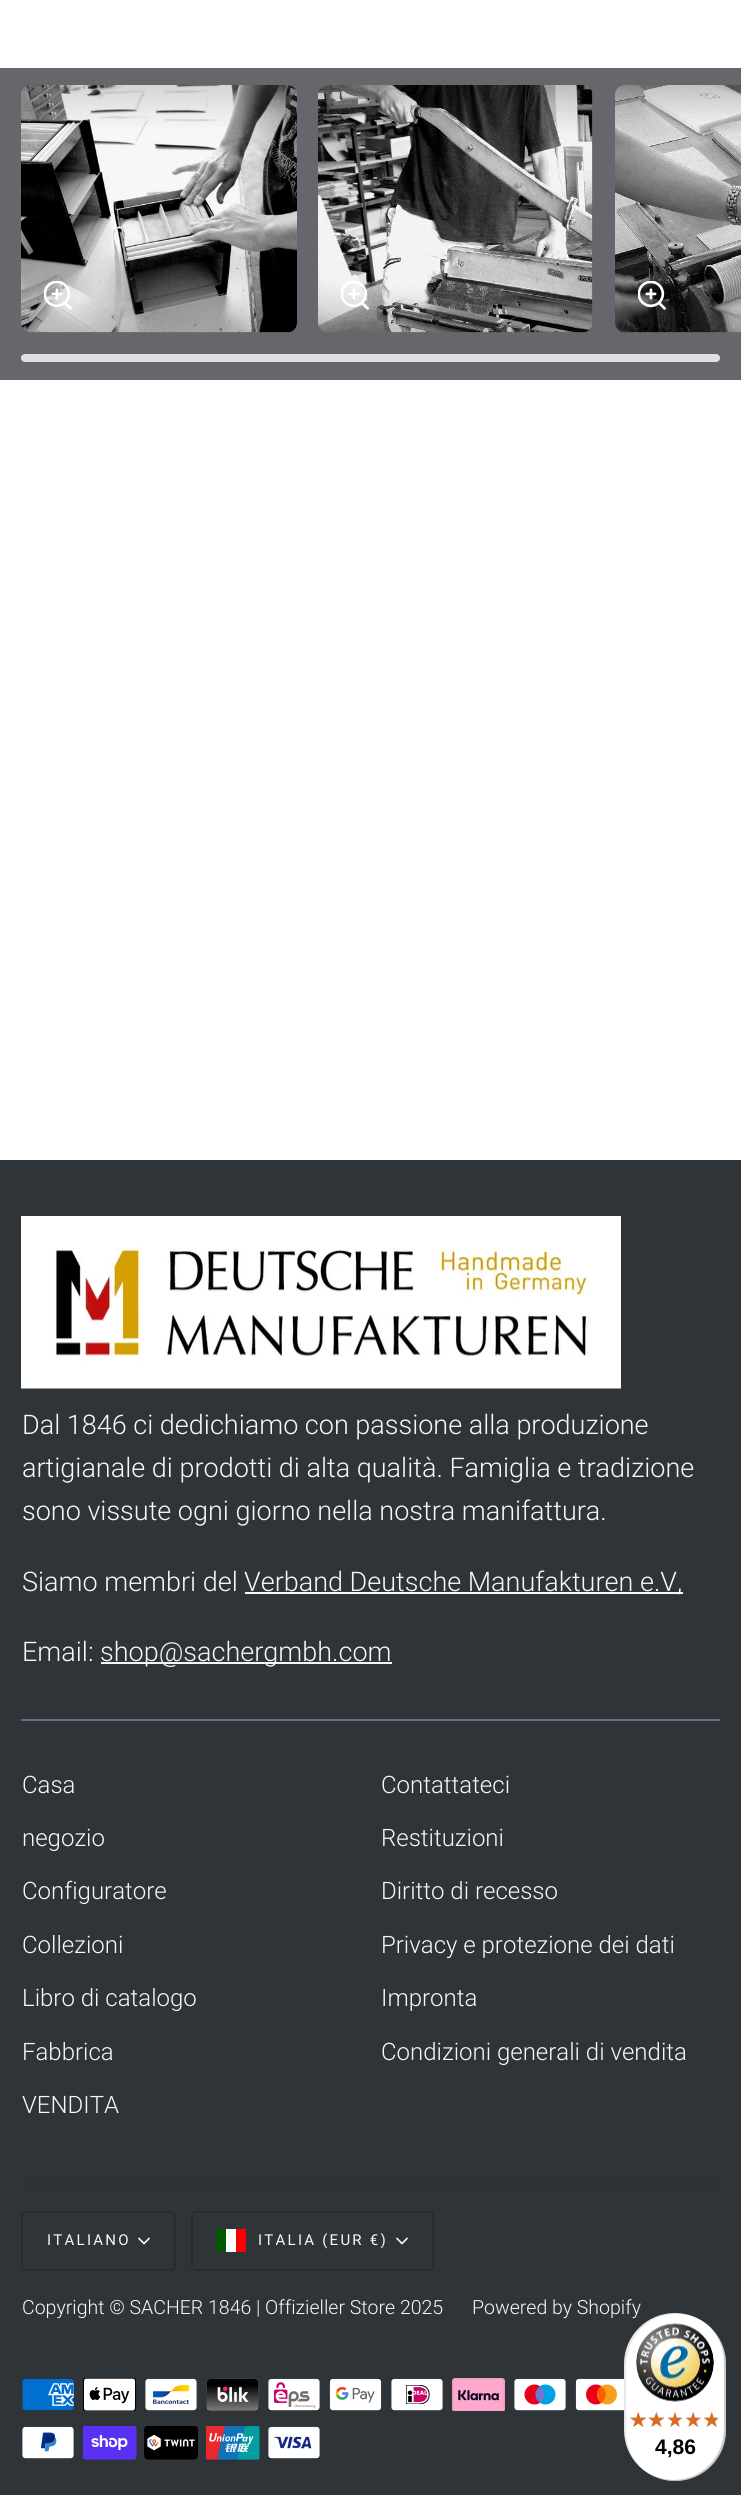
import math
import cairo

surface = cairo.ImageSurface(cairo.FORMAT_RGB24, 741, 2495)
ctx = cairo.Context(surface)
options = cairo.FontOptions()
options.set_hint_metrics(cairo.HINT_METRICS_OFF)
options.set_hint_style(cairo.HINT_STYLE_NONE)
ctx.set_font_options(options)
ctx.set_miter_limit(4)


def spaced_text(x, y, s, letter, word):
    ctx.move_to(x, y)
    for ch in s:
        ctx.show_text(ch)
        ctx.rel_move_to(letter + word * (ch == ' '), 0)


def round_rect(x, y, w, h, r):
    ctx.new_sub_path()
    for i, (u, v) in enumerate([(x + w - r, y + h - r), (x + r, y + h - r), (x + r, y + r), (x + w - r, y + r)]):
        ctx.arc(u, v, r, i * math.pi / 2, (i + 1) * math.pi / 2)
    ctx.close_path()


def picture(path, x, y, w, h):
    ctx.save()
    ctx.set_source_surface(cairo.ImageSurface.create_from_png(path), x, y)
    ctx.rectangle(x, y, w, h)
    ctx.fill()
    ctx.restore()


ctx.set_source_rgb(1, 1, 1)
ctx.paint()
ctx.set_source_rgb(0.4, 0.404, 0.427)
ctx.rectangle(0, 68, 741, 312)
ctx.fill()
picture("img1.png", 21, 85, 276, 248)
picture("img2.png", 44, 281, 28, 29)
picture("img3.png", 318, 85, 275, 248)
picture("img4.png", 341, 281, 28, 29)
picture("img5.png", 615, 85, 126, 248)
picture("img6.png", 638, 281, 28, 29)
ctx.set_source_rgb(0.878, 0.878, 0.878)
round_rect(21, 354, 699, 8, 4)
ctx.fill()
ctx.set_source_rgba(0.875, 0.875, 0.875, 0.2)
round_rect(21, 354, 548, 8, 4)
ctx.fill()
ctx.set_source_rgb(0.18, 0.204, 0.22)
ctx.rectangle(0, 1160, 741, 1335)
ctx.fill()
picture("img7.png", 21, 1216, 600, 173)
ctx.select_font_face("Roboto Light")
ctx.set_font_size(27)
ctx.set_source_rgb(0.969, 0.969, 0.969)
ctx.move_to(22, 1434)
ctx.show_text("Dal 1846 ci dedichiamo con passione alla produzione")
ctx.move_to(22, 1477)
ctx.show_text("artigianale di prodotti di alta qualità. Famiglia e tradizione")
ctx.move_to(22, 1520)
ctx.show_text("sono vissute ogni giorno nella nostra manifattura.")
ctx.move_to(22, 1591)
ctx.show_text("Siamo membri del")
ctx.rectangle(245, 1592, 438, 2)
ctx.fill()
ctx.move_to(244, 1591)
ctx.show_text("Verband Deutsche Manufakturen e.V,")
ctx.move_to(22, 1661)
ctx.show_text("Email:")
ctx.rectangle(101, 1662, 291, 2)
ctx.fill()
ctx.move_to(100, 1661)
ctx.show_text("shop@sachergmbh.com")
ctx.set_source_rgb(0.388, 0.424, 0.486)
ctx.rectangle(21, 1719, 699, 2)
ctx.fill()
ctx.set_font_size(24)
ctx.set_source_rgb(0.969, 0.969, 0.969)
ctx.move_to(22, 1793)
ctx.show_text("Casa")
ctx.move_to(22, 1846)
ctx.show_text("negozio")
ctx.move_to(22, 1899)
ctx.show_text("Configuratore")
ctx.move_to(22, 1953)
ctx.show_text("Collezioni")
ctx.move_to(22, 2006)
ctx.show_text("Libro di catalogo")
ctx.move_to(22, 2060)
ctx.show_text("Fabbrica")
ctx.move_to(22, 2113)
ctx.show_text("VENDITA")
ctx.move_to(381, 1793)
ctx.show_text("Contattateci")
ctx.move_to(381, 1846)
ctx.show_text("Restituzioni")
ctx.move_to(381, 1899)
ctx.show_text("Diritto di recesso")
ctx.move_to(381, 1953)
ctx.show_text("Privacy e protezione dei dati")
ctx.move_to(381, 2006)
ctx.show_text("Impronta")
ctx.move_to(381, 2060)
ctx.show_text("Condizioni generali di vendita")
ctx.set_source_rgb(0.165, 0.188, 0.204)
ctx.rectangle(21, 2183, 699, 2)
ctx.fill()
round_rect(22, 2212, 153, 58, 4)
ctx.set_source_rgb(0.153, 0.173, 0.188)
ctx.stroke()
ctx.select_font_face("Roboto")
ctx.set_font_size(15)
ctx.set_source_rgb(0.969, 0.969, 0.969)
spaced_text(47, 2245, "ITALIANO", 2.25, 0)
picture("img8.png", 138, 2237, 12, 8)
round_rect(192, 2212, 241, 58, 4)
ctx.set_source_rgb(0.153, 0.173, 0.188)
ctx.stroke()
ctx.set_source_rgb(1, 1, 1)
ctx.rectangle(226, 2229, 10, 23)
ctx.fill()
ctx.set_source_rgb(0, 0.341, 0)
ctx.rectangle(216, 2229, 10, 23)
ctx.fill()
ctx.set_source_rgb(0.988, 0, 0)
ctx.rectangle(236, 2229, 10, 23)
ctx.fill()
ctx.set_source_rgb(0.969, 0.969, 0.969)
spaced_text(258, 2245, "ITALIA (EUR €)", 2.25, 0)
picture("img8.png", 396, 2237, 12, 8)
ctx.select_font_face("Roboto Light")
ctx.set_font_size(19.5)
ctx.move_to(22, 2314)
ctx.show_text("Copyright © SACHER 1846 | Offizieller Store 2025")
ctx.move_to(472, 2314)
ctx.show_text("Powered by Shopify")
picture("img9.png", 22, 2378, 52, 33)
picture("img10.png", 83, 2378, 54, 33)
picture("img11.png", 145, 2378, 52, 33)
picture("img12.png", 206, 2378, 53, 33)
picture("img13.png", 268, 2378, 52, 33)
picture("img14.png", 329, 2378, 53, 33)
picture("img15.png", 391, 2378, 52, 33)
picture("img16.png", 452, 2378, 53, 33)
picture("img17.png", 514, 2378, 52, 33)
picture("img18.png", 575, 2378, 49, 33)
picture("img19.png", 22, 2426, 52, 33)
picture("img20.png", 83, 2426, 54, 34)
picture("img21.png", 144, 2426, 54, 34)
picture("img22.png", 206, 2426, 54, 34)
picture("img23.png", 268, 2426, 52, 33)
ctx.set_source_rgb(1, 1, 1)
round_rect(624, 2313, 102, 168, 51)
ctx.fill()
ctx.set_source_rgba(0, 0, 0, 0.1)
ctx.new_path()
ctx.move_to(676, 2314)
ctx.curve_to(686, 2314, 696, 2317, 704, 2322)
ctx.curve_to(696, 2316, 686, 2313, 675, 2313)
ctx.curve_to(647, 2313, 624, 2336, 624, 2364)
ctx.line_to(624, 2430)
ctx.curve_to(624, 2445, 631, 2459, 641, 2468)
ctx.curve_to(632, 2459, 626, 2446, 626, 2432)
ctx.line_to(626, 2366)
ctx.curve_to(626, 2337, 648, 2314, 676, 2314)
ctx.close_path()
ctx.fill()
ctx.set_source_rgba(0, 0, 0, 0.2)
ctx.new_path()
ctx.move_to(646, 2472)
ctx.curve_to(654, 2478, 664, 2481, 675, 2481)
ctx.curve_to(703, 2481, 726, 2458, 726, 2430)
ctx.line_to(726, 2364)
ctx.curve_to(726, 2349, 719, 2335, 709, 2326)
ctx.curve_to(718, 2335, 724, 2348, 724, 2362)
ctx.line_to(724, 2428)
ctx.curve_to(724, 2457, 702, 2480, 674, 2480)
ctx.curve_to(664, 2480, 654, 2477, 646, 2472)
ctx.close_path()
ctx.fill()
ctx.set_source_rgba(0.196, 0.196, 0.196, 0.2)
ctx.new_path()
ctx.move_to(636, 2463)
ctx.curve_to(646, 2474, 660, 2481, 675, 2481)
ctx.curve_to(703, 2481, 726, 2458, 726, 2430)
ctx.line_to(726, 2364)
ctx.curve_to(726, 2349, 719, 2335, 708, 2325)
ctx.curve_to(719, 2335, 725, 2348, 725, 2363)
ctx.line_to(725, 2429)
ctx.curve_to(725, 2457, 702, 2480, 674, 2480)
ctx.curve_to(659, 2480, 646, 2474, 636, 2463)
ctx.close_path()
ctx.fill()
ctx.set_source_rgba(1, 1, 1, 0.3)
ctx.new_path()
ctx.move_to(636, 2463)
ctx.curve_to(646, 2474, 660, 2481, 675, 2481)
ctx.curve_to(703, 2481, 726, 2458, 726, 2430)
ctx.line_to(726, 2364)
ctx.curve_to(726, 2349, 719, 2335, 708, 2325)
ctx.curve_to(719, 2335, 725, 2348, 725, 2363)
ctx.line_to(725, 2429)
ctx.curve_to(725, 2457, 702, 2480, 674, 2480)
ctx.curve_to(659, 2480, 646, 2474, 636, 2463)
ctx.close_path()
ctx.fill()
picture("img24.png", 636, 2323, 78, 79)
picture("img25.png", 630, 2412, 16, 15)
picture("img26.png", 650, 2412, 14, 15)
picture("img27.png", 668, 2412, 14, 15)
picture("img28.png", 686, 2412, 16, 15)
picture("img29.png", 704, 2412, 16, 15)
picture("img30.png", 630, 2412, 16, 15)
picture("img31.png", 648, 2412, 16, 15)
picture("img32.png", 668, 2412, 14, 15)
picture("img33.png", 686, 2412, 14, 15)
picture("img34.png", 704, 2412, 13, 15)
ctx.select_font_face("Liberation Sans", cairo.FONT_SLANT_NORMAL, cairo.FONT_WEIGHT_BOLD)
ctx.set_font_size(21)
ctx.set_source_rgb(0, 0, 0)
ctx.move_to(655, 2454)
ctx.show_text("4,86")
surface.write_to_png("page.png")
